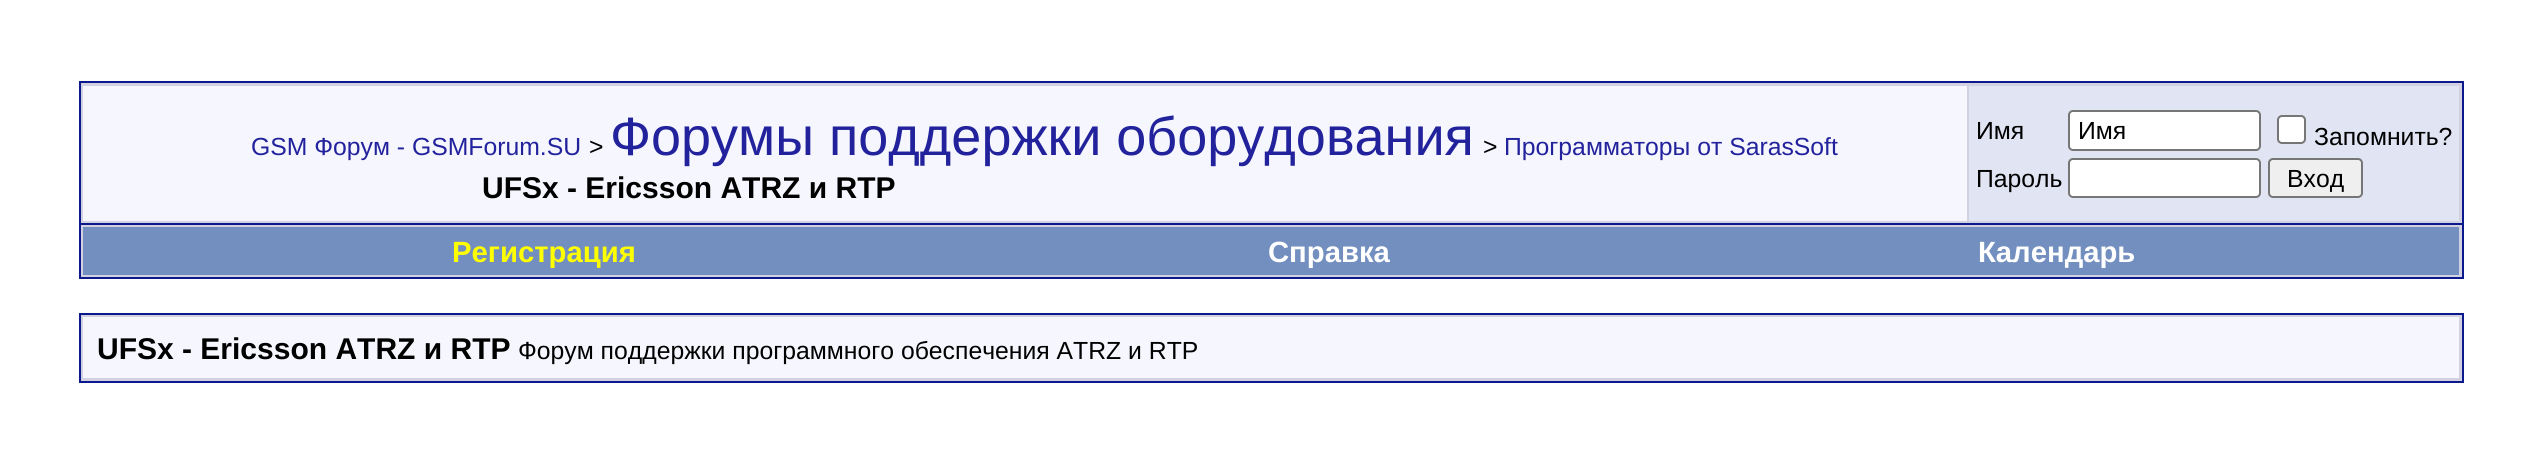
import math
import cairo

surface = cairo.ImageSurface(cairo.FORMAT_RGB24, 2541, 459)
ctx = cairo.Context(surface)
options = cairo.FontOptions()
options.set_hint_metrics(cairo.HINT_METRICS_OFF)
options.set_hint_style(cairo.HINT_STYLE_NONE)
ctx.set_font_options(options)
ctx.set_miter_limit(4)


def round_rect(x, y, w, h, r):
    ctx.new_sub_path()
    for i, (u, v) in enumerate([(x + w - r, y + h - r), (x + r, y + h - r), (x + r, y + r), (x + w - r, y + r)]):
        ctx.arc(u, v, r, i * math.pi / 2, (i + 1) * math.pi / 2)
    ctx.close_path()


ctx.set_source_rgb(1, 1, 1)
ctx.paint()
ctx.set_source_rgb(0.82, 0.82, 0.882)
ctx.rectangle(80, 82, 2383, 142)
ctx.fill_preserve()
ctx.set_source_rgb(0.043, 0.098, 0.549)
ctx.stroke()
ctx.set_source_rgb(0.961, 0.961, 1)
ctx.rectangle(83, 86, 1884, 135)
ctx.fill()
ctx.select_font_face("Liberation Sans")
ctx.set_font_size(24.75)
ctx.set_source_rgb(0.133, 0.133, 0.612)
ctx.move_to(251, 155)
ctx.show_text("GSM Форум - GSMForum.SU")
ctx.set_source_rgb(0, 0, 0)
ctx.move_to(589, 155)
ctx.show_text(">")
ctx.set_font_size(54)
ctx.set_source_rgb(0.133, 0.133, 0.612)
ctx.move_to(610, 155)
ctx.show_text("Форумы поддержки оборудования")
ctx.set_font_size(24.75)
ctx.set_source_rgb(0, 0, 0)
ctx.move_to(1483, 155)
ctx.show_text(">")
ctx.set_source_rgb(0.133, 0.133, 0.612)
ctx.move_to(1504, 155)
ctx.show_text("Программаторы от SarasSoft")
ctx.select_font_face("Liberation Sans", cairo.FONT_SLANT_NORMAL, cairo.FONT_WEIGHT_BOLD)
ctx.set_font_size(30)
ctx.set_source_rgb(0, 0, 0)
ctx.move_to(482, 198)
ctx.show_text("UFSx - Ericsson ATRZ и RTP")
ctx.set_source_rgb(0.882, 0.894, 0.949)
ctx.rectangle(1969, 86, 490, 135)
ctx.fill()
ctx.select_font_face("Liberation Sans")
ctx.set_font_size(24.75)
ctx.set_source_rgb(0, 0, 0)
ctx.move_to(1976, 139)
ctx.show_text("Имя")
ctx.set_source_rgb(1, 1, 1)
round_rect(2069, 111, 191, 39, 4)
ctx.fill_preserve()
ctx.set_source_rgb(0.463, 0.463, 0.463)
ctx.stroke()
ctx.set_source_rgb(0, 0, 0)
ctx.move_to(2078, 139)
ctx.show_text("Имя")
ctx.set_source_rgb(1, 1, 1)
round_rect(2278, 116, 27, 27, 4)
ctx.fill_preserve()
ctx.set_source_rgb(0.463, 0.463, 0.463)
ctx.stroke()
ctx.set_source_rgb(0, 0, 0)
ctx.move_to(2314, 145)
ctx.show_text("Запомнить?")
ctx.move_to(1976, 187)
ctx.show_text("Пароль")
ctx.set_source_rgb(1, 1, 1)
round_rect(2069, 159, 191, 38, 4)
ctx.fill_preserve()
ctx.set_source_rgb(0.463, 0.463, 0.463)
ctx.stroke()
ctx.set_source_rgb(0.937, 0.937, 0.937)
round_rect(2269, 159, 93, 38, 4)
ctx.fill_preserve()
ctx.set_source_rgb(0.463, 0.463, 0.463)
ctx.stroke()
ctx.set_source_rgb(0, 0, 0)
ctx.move_to(2287, 187)
ctx.show_text("Вход")
ctx.set_source_rgb(0.82, 0.82, 0.882)
ctx.rectangle(81, 225, 2381, 52)
ctx.fill()
ctx.set_source_rgb(0.043, 0.098, 0.549)
ctx.rectangle(2462, 225, 2, 54)
ctx.fill()
ctx.rectangle(79, 277, 2385, 2)
ctx.fill()
ctx.rectangle(79, 225, 2, 54)
ctx.fill()
ctx.set_source_rgb(0.451, 0.561, 0.749)
ctx.rectangle(83, 227, 2376, 48)
ctx.fill()
ctx.select_font_face("Liberation Sans", cairo.FONT_SLANT_NORMAL, cairo.FONT_WEIGHT_BOLD)
ctx.set_font_size(29.25)
ctx.set_source_rgb(1, 1, 0)
ctx.move_to(452, 262)
ctx.show_text("Регистрация")
ctx.set_source_rgb(1, 1, 1)
ctx.move_to(1268, 262)
ctx.show_text("Справка")
ctx.move_to(1978, 262)
ctx.show_text("Календарь")
ctx.set_source_rgb(0.82, 0.82, 0.882)
ctx.rectangle(80, 314, 2383, 68)
ctx.fill_preserve()
ctx.set_source_rgb(0.043, 0.098, 0.549)
ctx.stroke()
ctx.set_source_rgb(0.961, 0.961, 1)
ctx.rectangle(83, 317, 2376, 61)
ctx.fill()
ctx.set_font_size(30)
ctx.set_source_rgb(0, 0, 0)
ctx.move_to(97, 359)
ctx.show_text("UFSx - Ericsson ATRZ и RTP")
ctx.select_font_face("Liberation Sans")
ctx.set_font_size(24.75)
ctx.move_to(518, 359)
ctx.show_text("Форум поддержки программного обеспечения ATRZ и RTP")
surface.write_to_png("page.png")
